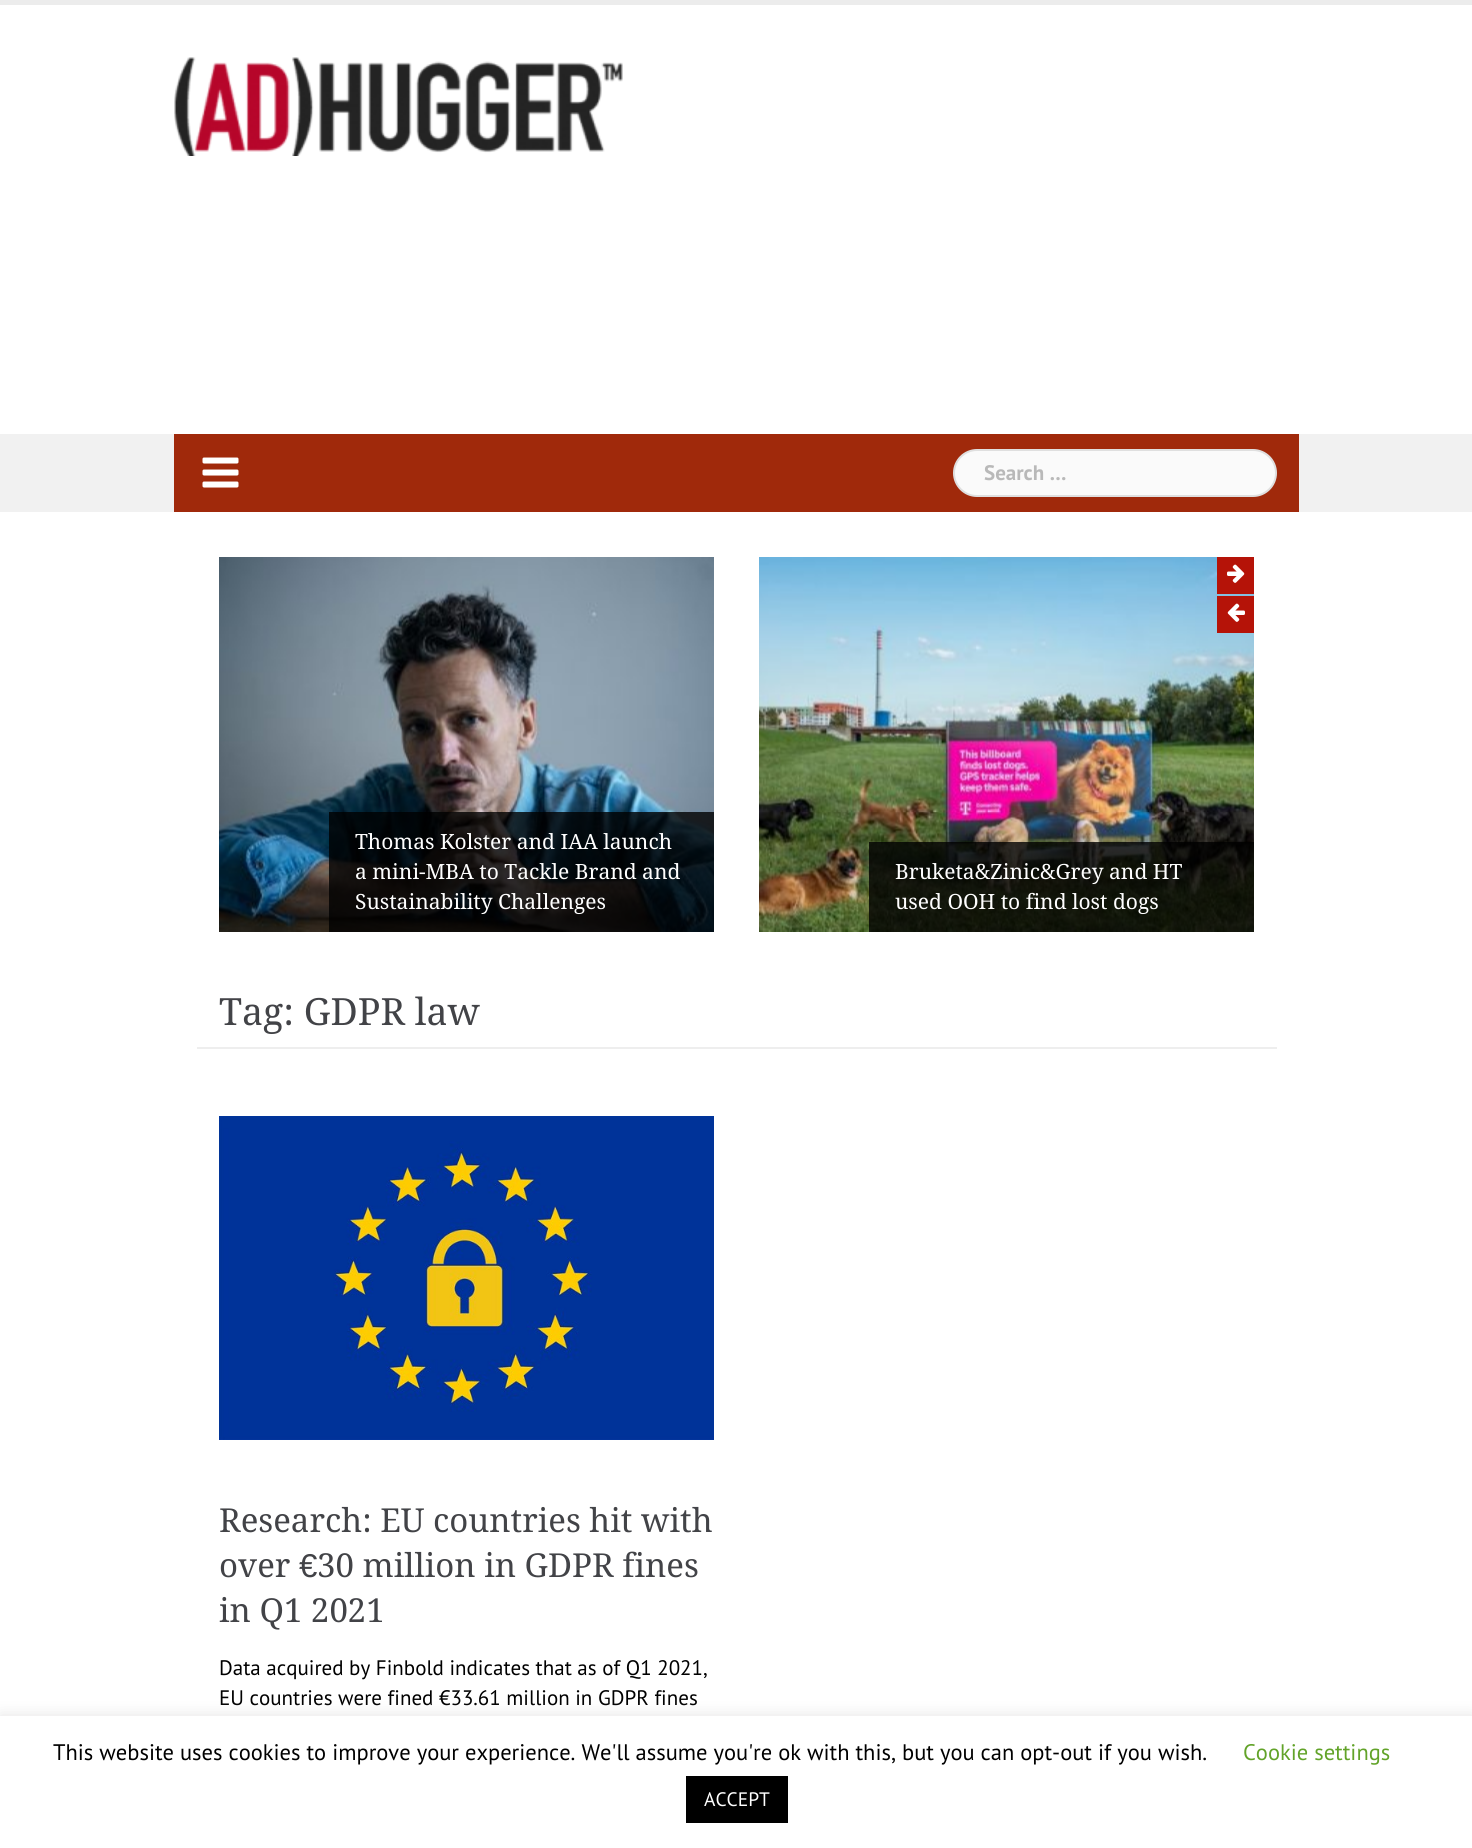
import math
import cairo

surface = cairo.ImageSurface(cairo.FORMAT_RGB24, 1472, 1848)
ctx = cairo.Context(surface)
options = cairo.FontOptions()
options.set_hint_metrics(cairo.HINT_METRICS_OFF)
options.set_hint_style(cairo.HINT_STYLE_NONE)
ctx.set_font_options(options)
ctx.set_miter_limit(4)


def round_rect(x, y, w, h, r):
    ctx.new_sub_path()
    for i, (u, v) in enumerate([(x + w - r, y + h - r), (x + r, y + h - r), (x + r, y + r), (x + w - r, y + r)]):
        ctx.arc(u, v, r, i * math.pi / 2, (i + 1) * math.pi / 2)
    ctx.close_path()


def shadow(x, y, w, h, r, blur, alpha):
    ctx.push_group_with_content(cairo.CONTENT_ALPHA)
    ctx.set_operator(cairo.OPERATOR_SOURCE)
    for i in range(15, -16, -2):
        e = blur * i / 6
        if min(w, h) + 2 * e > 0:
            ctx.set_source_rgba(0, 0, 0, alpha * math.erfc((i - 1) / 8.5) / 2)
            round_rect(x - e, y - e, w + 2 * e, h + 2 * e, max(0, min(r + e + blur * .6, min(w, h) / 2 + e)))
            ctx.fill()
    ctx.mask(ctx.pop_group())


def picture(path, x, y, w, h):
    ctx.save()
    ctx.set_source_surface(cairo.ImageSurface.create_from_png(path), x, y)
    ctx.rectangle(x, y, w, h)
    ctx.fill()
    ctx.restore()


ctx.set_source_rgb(1, 1, 1)
ctx.paint()
ctx.set_source_rgb(0.922, 0.922, 0.922)
ctx.rectangle(0, 0, 1472, 5)
ctx.fill()
picture("img1.png", 174, 57, 449, 99)
ctx.set_source_rgb(0.945, 0.945, 0.945)
ctx.rectangle(0, 434, 1472, 78)
ctx.fill()
ctx.set_source_rgb(0.627, 0.161, 0.043)
ctx.rectangle(174, 434, 1125, 78)
ctx.fill()
picture("img2.png", 202, 457, 37, 31)
ctx.set_source_rgb(0.98, 0.98, 0.98)
round_rect(954, 450, 322, 46, 23)
ctx.fill_preserve()
ctx.set_source_rgb(0.875, 0.875, 0.875)
ctx.stroke()
ctx.select_font_face("PT Sans", cairo.FONT_SLANT_NORMAL, cairo.FONT_WEIGHT_BOLD)
ctx.set_font_size(21)
ctx.set_source_rgb(0.725, 0.725, 0.725)
ctx.move_to(984, 480)
ctx.show_text("Search …")
picture("img6.png", 759, 557, 495, 375)
ctx.set_source_rgb(0.71, 0.078, 0.035)
ctx.rectangle(1217, 557, 37, 37)
ctx.fill()
picture("img3.png", 1227, 564, 18, 19)
ctx.rectangle(1217, 596, 37, 37)
ctx.fill()
picture("img4.png", 1227, 603, 18, 19)
picture("img5.png", 219, 557, 495, 375)
ctx.set_source_rgba(0, 0, 0, 0.8)
ctx.rectangle(329, 812, 385, 120)
ctx.fill()
ctx.select_font_face("Droid Serif")
ctx.set_source_rgb(1, 1, 1)
ctx.move_to(355, 849)
ctx.show_text("Thomas Kolster and IAA launch")
ctx.move_to(355, 879)
ctx.show_text("a mini-MBA to Tackle Brand and")
ctx.move_to(355, 909)
ctx.show_text("Sustainability Challenges")
ctx.set_source_rgba(0, 0, 0, 0.8)
ctx.rectangle(869, 842, 385, 90)
ctx.fill()
ctx.set_source_rgb(1, 1, 1)
ctx.move_to(895, 879)
ctx.show_text("Bruketa&Zinic&Grey and HT")
ctx.move_to(895, 909)
ctx.show_text("used OOH to find lost dogs")
ctx.set_source_rgb(0.933, 0.933, 0.933)
ctx.rectangle(197, 1047, 1080, 2)
ctx.fill()
ctx.set_font_size(37.5)
ctx.set_source_rgb(0.259, 0.263, 0.278)
ctx.move_to(219, 1025)
ctx.show_text("Tag: GDPR law")
picture("img7.png", 219, 1116, 495, 324)
ctx.set_font_size(33)
ctx.move_to(219, 1532)
ctx.show_text("Research: EU countries hit with")
ctx.move_to(219, 1577)
ctx.show_text("over")
ctx.select_font_face("Liberation Sans")
ctx.move_to(299, 1577)
ctx.show_text("€")
ctx.select_font_face("Droid Serif")
ctx.move_to(317, 1577)
ctx.show_text("30 million in GDPR fines")
ctx.move_to(219, 1622)
ctx.show_text("in Q1 2021")
ctx.select_font_face("PT Sans")
ctx.set_font_size(21)
ctx.set_source_rgb(0, 0, 0)
ctx.move_to(219, 1675)
ctx.show_text("Data acquired by Finbold indicates that as of Q1 2021,")
ctx.move_to(219, 1705)
ctx.show_text("EU countries were fined €33.61 million in GDPR fines")
ctx.set_source_rgb(0.675, 0.671, 0.671)
shadow(0, 1715, 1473, 132, 0, 7.5, 0.3)
ctx.set_source_rgb(1, 1, 1)
ctx.rectangle(0, 1716, 1472, 132)
ctx.fill()
ctx.set_font_size(22.5)
ctx.set_source_rgb(0, 0, 0)
ctx.move_to(53, 1760)
ctx.show_text("This website uses cookies to improve your experience. We'll assume you're ok with this, but you can opt-out if you wish.")
ctx.set_source_rgb(0.384, 0.639, 0.161)
ctx.move_to(1243, 1760)
ctx.show_text("Cookie settings")
ctx.set_source_rgb(0, 0, 0)
ctx.rectangle(686, 1776, 102, 47)
ctx.fill()
ctx.set_font_size(19.5)
ctx.set_source_rgb(1, 1, 1)
ctx.move_to(704, 1806)
ctx.show_text("ACCEPT")
surface.write_to_png("page.png")
